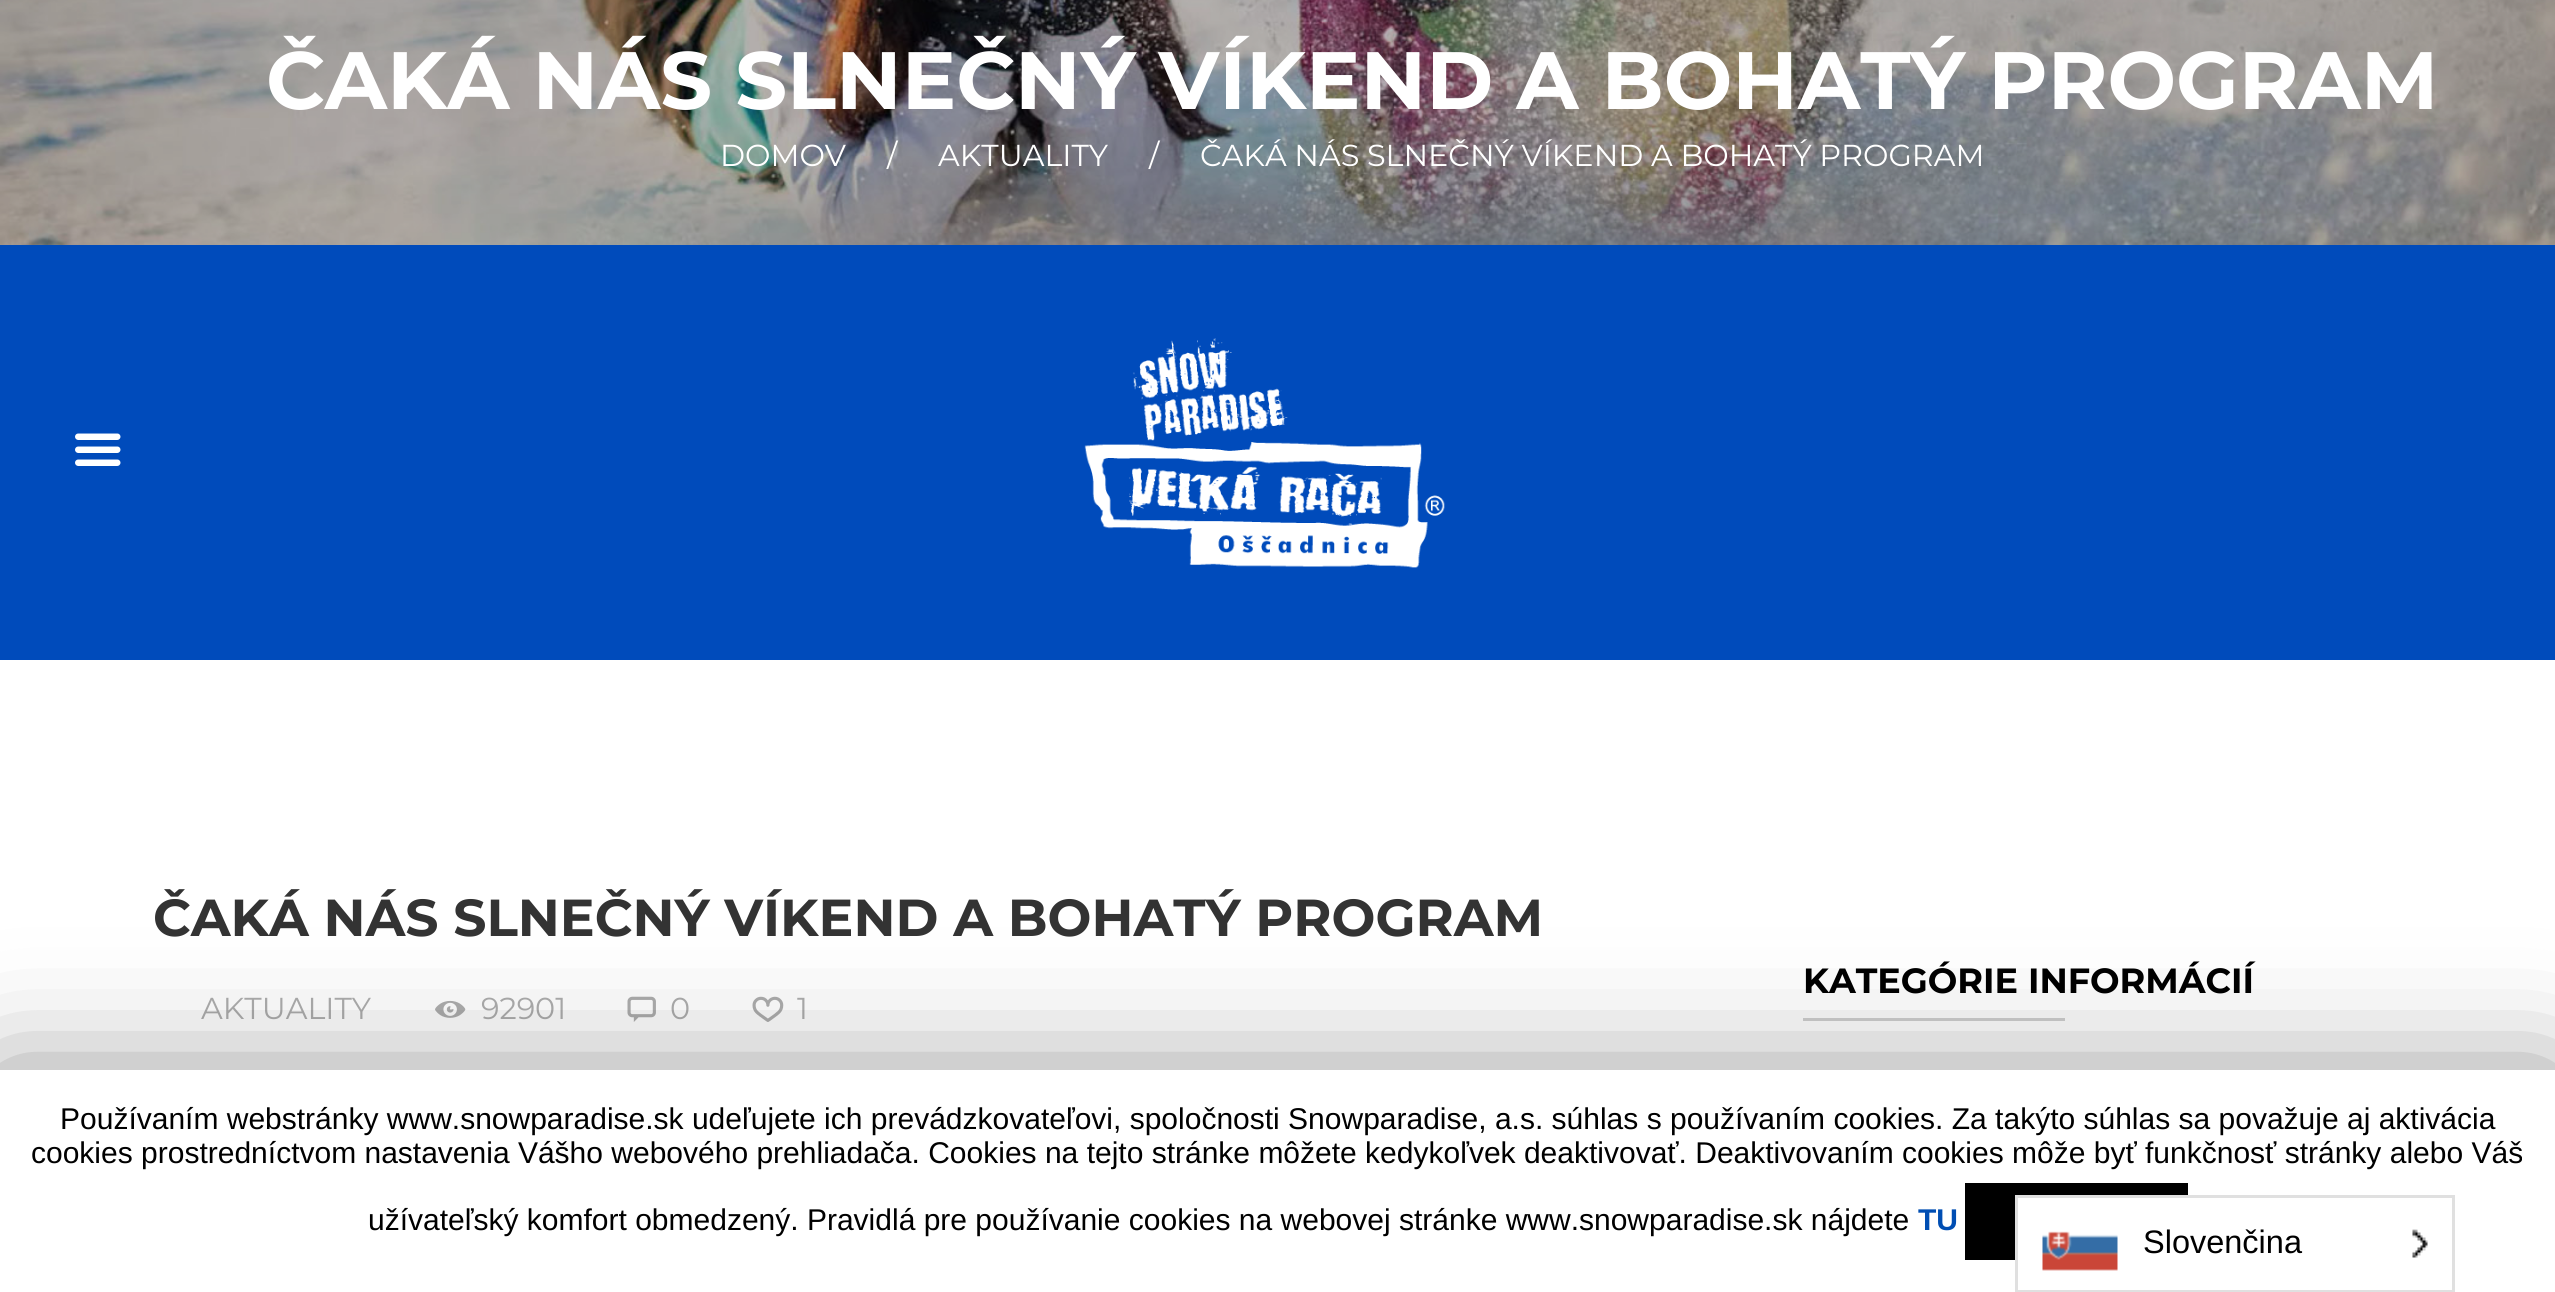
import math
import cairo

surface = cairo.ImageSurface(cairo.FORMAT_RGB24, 2555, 1292)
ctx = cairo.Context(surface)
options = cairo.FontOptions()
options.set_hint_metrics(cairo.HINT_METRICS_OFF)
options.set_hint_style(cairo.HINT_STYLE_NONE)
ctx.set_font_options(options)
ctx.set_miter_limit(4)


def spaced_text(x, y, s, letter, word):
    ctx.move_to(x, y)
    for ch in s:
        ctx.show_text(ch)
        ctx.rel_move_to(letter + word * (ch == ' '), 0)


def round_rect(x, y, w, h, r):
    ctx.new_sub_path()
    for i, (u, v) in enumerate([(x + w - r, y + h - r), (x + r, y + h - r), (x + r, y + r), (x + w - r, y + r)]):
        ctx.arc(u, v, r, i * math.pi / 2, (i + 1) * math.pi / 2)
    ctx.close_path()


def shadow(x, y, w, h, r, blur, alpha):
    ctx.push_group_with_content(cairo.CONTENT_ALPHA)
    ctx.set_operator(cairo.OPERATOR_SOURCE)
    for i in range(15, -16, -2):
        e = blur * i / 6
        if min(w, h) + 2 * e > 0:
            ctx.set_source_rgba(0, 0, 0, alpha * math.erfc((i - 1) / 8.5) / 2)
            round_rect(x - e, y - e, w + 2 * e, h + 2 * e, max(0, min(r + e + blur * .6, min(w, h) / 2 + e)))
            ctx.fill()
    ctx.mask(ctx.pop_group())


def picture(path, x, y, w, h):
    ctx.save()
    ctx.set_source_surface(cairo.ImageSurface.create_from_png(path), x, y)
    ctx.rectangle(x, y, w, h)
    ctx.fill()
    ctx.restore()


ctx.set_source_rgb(1, 1, 1)
ctx.paint()
picture("img1.png", 0, 0, 2555, 245)
ctx.select_font_face("Montserrat", cairo.FONT_SLANT_NORMAL, cairo.FONT_WEIGHT_BOLD)
ctx.set_font_size(81.25)
ctx.set_source_rgb(1, 1, 1)
ctx.move_to(266, 109)
ctx.show_text("ČAKÁ NÁS SLNEČNÝ VÍKEND A BOHATÝ PROGRAM")
ctx.select_font_face("Montserrat")
ctx.set_font_size(30.3)
ctx.move_to(720, 166)
ctx.show_text("DOMOV")
ctx.move_to(887, 166)
ctx.show_text("/")
ctx.move_to(938, 166)
ctx.show_text("AKTUALITY")
ctx.move_to(1149, 166)
ctx.show_text("/")
spaced_text(1200, 166, "ČAKÁ NÁS SLNEČNÝ VÍKEND A BOHATÝ PROGRAM", 0, -0.25)
ctx.set_source_rgb(0, 0.294, 0.733)
ctx.rectangle(0, 245, 2555, 415)
ctx.fill()
picture("img2.png", 75, 433, 46, 33)
picture("img3.png", 1084, 338, 361, 230)
ctx.select_font_face("Montserrat", cairo.FONT_SLANT_NORMAL, cairo.FONT_WEIGHT_BOLD)
ctx.set_font_size(52)
ctx.set_source_rgb(0.2, 0.2, 0.2)
ctx.move_to(153, 936)
ctx.show_text("ČAKÁ NÁS SLNEČNÝ VÍKEND A BOHATÝ PROGRAM")
ctx.select_font_face("Montserrat")
ctx.set_font_size(30.3)
ctx.set_source_rgb(0.682, 0.682, 0.682)
ctx.move_to(201, 1019)
ctx.show_text("AKTUALITY")
picture("img4.png", 435, 1000, 31, 18)
ctx.move_to(481, 1019)
ctx.show_text("92901")
picture("img5.png", 627, 996, 29, 26)
ctx.move_to(670, 1019)
ctx.show_text("0")
picture("img6.png", 752, 996, 32, 26)
ctx.move_to(797, 1019)
ctx.show_text("1")
ctx.select_font_face("Montserrat", cairo.FONT_SLANT_NORMAL, cairo.FONT_WEIGHT_BOLD)
ctx.set_font_size(35)
ctx.set_source_rgb(0, 0, 0)
ctx.move_to(1803, 993)
ctx.show_text("KATEGÓRIE INFORMÁCIÍ")
ctx.set_source_rgb(0.816, 0.816, 0.816)
ctx.rectangle(1803, 1018, 262, 3)
ctx.fill()
ctx.set_source_rgb(0, 0, 0)
shadow(0, 1083, 2555, 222, 0, 62.5, 0.5)
ctx.set_source_rgb(1, 1, 1)
ctx.rectangle(0, 1070, 2555, 222)
ctx.fill()
ctx.select_font_face("Liberation Sans")
ctx.set_font_size(30)
ctx.set_source_rgb(0, 0, 0)
ctx.move_to(60, 1129)
ctx.show_text("Používaním webstránky www.snowparadise.sk udeľujete ich prevádzkovateľovi, spoločnosti Snowparadise, a.s. súhlas s používaním cookies. Za takýto súhlas sa považuje aj aktivácia")
ctx.move_to(31, 1163)
ctx.show_text("cookies prostredníctvom nastavenia Vášho webového prehliadača. Cookies na tejto stránke môžete kedykoľvek deaktivovať. Deaktivovaním cookies môže byť funkčnosť stránky alebo Váš")
ctx.move_to(368, 1230)
ctx.show_text("užívateľský komfort obmedzený. Pravidlá pre používanie cookies na webovej stránke www.snowparadise.sk nájdete")
ctx.select_font_face("Liberation Sans", cairo.FONT_SLANT_NORMAL, cairo.FONT_WEIGHT_BOLD)
ctx.set_source_rgb(0, 0.306, 0.702)
ctx.move_to(1918, 1230)
ctx.show_text("TU")
ctx.set_source_rgb(0, 0, 0)
ctx.rectangle(1965, 1183, 223, 77)
ctx.fill()
ctx.set_source_rgb(1, 1, 1)
ctx.rectangle(2018, 1198, 170, 62)
ctx.fill()
ctx.rectangle(2016.5, 1196.5, 437, 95)
ctx.set_source_rgb(0.878, 0.878, 0.878)
ctx.set_line_width(3)
ctx.stroke()
picture("img7.png", 2042, 1231, 76, 40)
ctx.select_font_face("Liberation Sans")
ctx.set_font_size(32.5)
ctx.set_source_rgb(0, 0, 0)
ctx.move_to(2143, 1253)
ctx.show_text("Slovenčina")
picture("img8.png", 2412, 1229, 16, 29)
surface.write_to_png("page.png")
